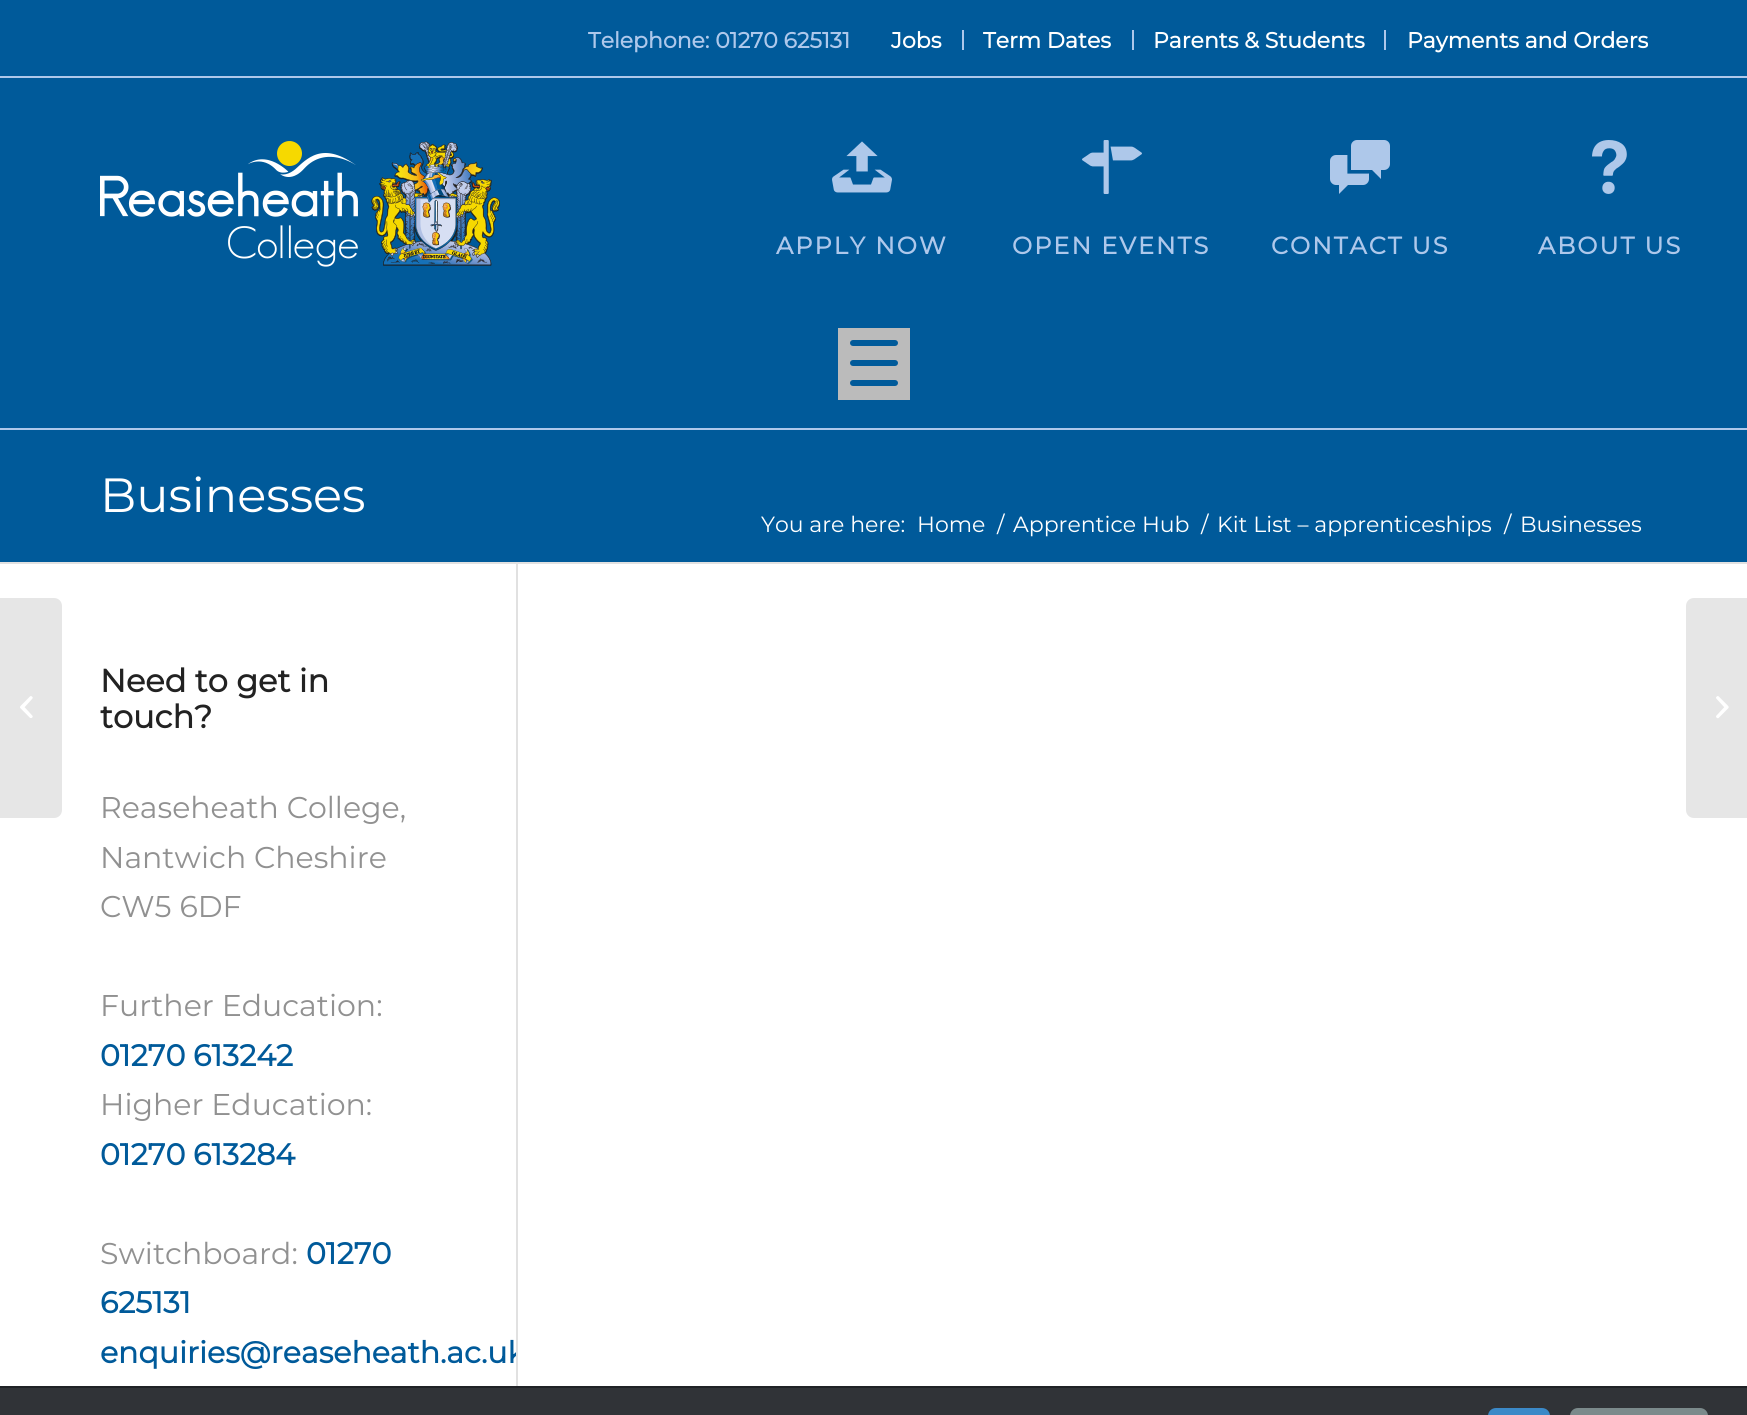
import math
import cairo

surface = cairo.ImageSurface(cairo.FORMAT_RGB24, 1747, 1415)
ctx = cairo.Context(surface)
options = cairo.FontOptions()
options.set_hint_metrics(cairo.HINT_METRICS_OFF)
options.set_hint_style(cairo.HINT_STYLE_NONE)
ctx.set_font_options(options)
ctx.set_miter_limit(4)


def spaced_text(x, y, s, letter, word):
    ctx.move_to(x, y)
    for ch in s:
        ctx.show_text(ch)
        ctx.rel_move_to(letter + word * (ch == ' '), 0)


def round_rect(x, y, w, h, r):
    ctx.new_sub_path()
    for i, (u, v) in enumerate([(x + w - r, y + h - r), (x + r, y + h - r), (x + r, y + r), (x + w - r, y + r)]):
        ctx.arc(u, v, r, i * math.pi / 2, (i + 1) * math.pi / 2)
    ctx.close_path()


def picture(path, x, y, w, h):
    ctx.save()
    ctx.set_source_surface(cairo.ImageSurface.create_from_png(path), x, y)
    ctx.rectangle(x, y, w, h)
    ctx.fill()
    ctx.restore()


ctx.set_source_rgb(0, 0.353, 0.604)
ctx.paint()
ctx.set_source_rgb(0.682, 0.784, 0.918)
ctx.rectangle(0, 76, 1747, 2)
ctx.fill()
ctx.select_font_face("Montserrat", cairo.FONT_SLANT_NORMAL, cairo.FONT_WEIGHT_BOLD)
ctx.set_font_size(22)
ctx.move_to(588, 48)
ctx.show_text("Telephone: 01270 625131")
ctx.rectangle(962, 30, 2, 20)
ctx.fill()
ctx.set_source_rgb(1, 1, 1)
ctx.move_to(891, 48)
ctx.show_text("Jobs")
ctx.set_source_rgb(0.682, 0.784, 0.918)
ctx.rectangle(1132, 30, 2, 20)
ctx.fill()
ctx.set_source_rgb(1, 1, 1)
ctx.move_to(983, 48)
ctx.show_text("Term Dates")
ctx.set_source_rgb(0.682, 0.784, 0.918)
ctx.rectangle(1384, 30, 2, 20)
ctx.fill()
ctx.set_source_rgb(1, 1, 1)
ctx.move_to(1153, 48)
ctx.show_text("Parents & Students")
ctx.move_to(1407, 48)
ctx.show_text("Payments and Orders")
ctx.set_source_rgb(0.682, 0.784, 0.918)
ctx.rectangle(0, 428, 1747, 2)
ctx.fill()
picture("img1.png", 100, 141, 400, 126)
picture("img2.png", 832, 141, 60, 52)
ctx.set_font_size(24)
spaced_text(776, 254, "APPLY NOW", 2, 0)
picture("img3.png", 1082, 140, 60, 54)
spaced_text(1012, 254, "OPEN EVENTS", 2, 0)
picture("img4.png", 1330, 140, 60, 54)
spaced_text(1271, 254, "CONTACT US", 2, 0)
picture("img5.png", 1592, 140, 35, 54)
spaced_text(1538, 254, "ABOUT US", 2, 0)
ctx.set_source_rgb(0.733, 0.733, 0.733)
ctx.rectangle(838, 328, 72, 72)
ctx.fill()
ctx.set_source_rgb(0, 0.353, 0.604)
round_rect(850, 360, 48, 6, 3)
ctx.fill()
round_rect(850, 340, 48, 6, 3)
ctx.fill()
round_rect(850, 380, 48, 6, 3)
ctx.fill()
ctx.set_source_rgb(1, 1, 1)
ctx.rectangle(0, 564, 1747, 822)
ctx.fill()
ctx.set_source_rgb(0.902, 0.902, 0.902)
ctx.new_path()
ctx.move_to(0, 598)
ctx.line_to(54, 598)
ctx.curve_to(58.5, 598, 62, 601.5, 62, 606)
ctx.line_to(62, 810)
ctx.curve_to(62, 814.5, 58.5, 818, 54, 818)
ctx.line_to(0, 818)
ctx.close_path()
ctx.fill()
picture("img6.png", 20, 696, 13, 22)
ctx.select_font_face("Montserrat Thin")
ctx.set_font_size(48)
ctx.set_source_rgb(1, 1, 1)
ctx.move_to(100, 512)
ctx.show_text("Businesses")
ctx.set_font_size(22)
ctx.move_to(761, 532)
ctx.show_text("You are here:")
ctx.move_to(917, 532)
ctx.show_text("Home")
ctx.move_to(997, 532)
ctx.show_text("/")
ctx.move_to(1013, 532)
ctx.show_text("Apprentice Hub")
ctx.move_to(1201, 532)
ctx.show_text("/")
ctx.move_to(1217, 532)
ctx.show_text("Kit List – apprenticeships")
ctx.move_to(1504, 532)
ctx.show_text("/")
ctx.move_to(1520, 532)
ctx.show_text("Businesses")
ctx.set_source_rgb(0.188, 0.2, 0.216)
ctx.rectangle(0, 1388, 1747, 27)
ctx.fill()
ctx.set_source_rgb(0.882, 0.882, 0.882)
ctx.rectangle(0, 562, 1747, 2)
ctx.fill()
ctx.rectangle(516, 564, 2, 822)
ctx.fill()
ctx.select_font_face("Montserrat", cairo.FONT_SLANT_NORMAL, cairo.FONT_WEIGHT_BOLD)
ctx.set_font_size(32)
ctx.set_source_rgb(0.133, 0.133, 0.133)
ctx.move_to(100, 692)
ctx.show_text("Need to get in")
ctx.move_to(100, 728)
ctx.show_text("touch?")
ctx.select_font_face("Montserrat Thin")
ctx.set_font_size(30)
ctx.set_source_rgb(0.569, 0.569, 0.569)
ctx.move_to(100, 818)
ctx.show_text("Reaseheath College,")
ctx.move_to(100, 868)
ctx.show_text("Nantwich Cheshire")
ctx.move_to(100, 917)
ctx.show_text("CW5 6DF")
ctx.move_to(100, 1016)
ctx.show_text("Further Education:")
ctx.select_font_face("Montserrat", cairo.FONT_SLANT_NORMAL, cairo.FONT_WEIGHT_BOLD)
ctx.set_source_rgb(0, 0.353, 0.604)
ctx.move_to(100, 1066)
ctx.show_text("01270 613242")
ctx.select_font_face("Montserrat Thin")
ctx.set_source_rgb(0.569, 0.569, 0.569)
ctx.move_to(100, 1115)
ctx.show_text("Higher Education:")
ctx.select_font_face("Montserrat", cairo.FONT_SLANT_NORMAL, cairo.FONT_WEIGHT_BOLD)
ctx.set_source_rgb(0, 0.353, 0.604)
ctx.move_to(100, 1165)
ctx.show_text("01270 613284")
ctx.select_font_face("Montserrat Thin")
ctx.set_source_rgb(0.569, 0.569, 0.569)
ctx.move_to(100, 1264)
ctx.show_text("Switchboard:")
ctx.select_font_face("Montserrat", cairo.FONT_SLANT_NORMAL, cairo.FONT_WEIGHT_BOLD)
ctx.set_source_rgb(0, 0.353, 0.604)
ctx.move_to(306, 1264)
ctx.show_text("01270")
ctx.move_to(100, 1313)
ctx.show_text("625131")
ctx.save()
ctx.rectangle(100, 564, 416, 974)
ctx.clip()
ctx.move_to(100, 1363)
ctx.show_text("enquiries@reaseheath.ac.uk")
ctx.restore()
ctx.set_source_rgb(0.902, 0.902, 0.902)
ctx.new_path()
ctx.move_to(1694, 598)
ctx.line_to(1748, 598)
ctx.line_to(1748, 818)
ctx.line_to(1694, 818)
ctx.curve_to(1689.5, 818, 1686, 814.5, 1686, 810)
ctx.line_to(1686, 606)
ctx.curve_to(1686, 601.5, 1689.5, 598, 1694, 598)
ctx.close_path()
ctx.fill()
picture("img7.png", 1716, 696, 13, 23)
ctx.set_source_rgb(0.125, 0.133, 0.149)
ctx.rectangle(0, 1386, 1747, 2)
ctx.fill()
ctx.set_source_rgb(0.231, 0.537, 0.78)
ctx.new_path()
ctx.move_to(1496, 1408)
ctx.line_to(1542, 1408)
ctx.curve_to(1546.5, 1408, 1550, 1411.5, 1550, 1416)
ctx.line_to(1488, 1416)
ctx.curve_to(1488, 1411.5, 1491.5, 1408, 1496, 1408)
ctx.close_path()
ctx.fill()
ctx.set_source_rgb(0.482, 0.541, 0.545)
ctx.new_path()
ctx.move_to(1578, 1408)
ctx.line_to(1700, 1408)
ctx.curve_to(1704.5, 1408, 1708, 1411.5, 1708, 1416)
ctx.line_to(1570, 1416)
ctx.curve_to(1570, 1411.5, 1573.5, 1408, 1578, 1408)
ctx.close_path()
ctx.fill()
surface.write_to_png("page.png")
